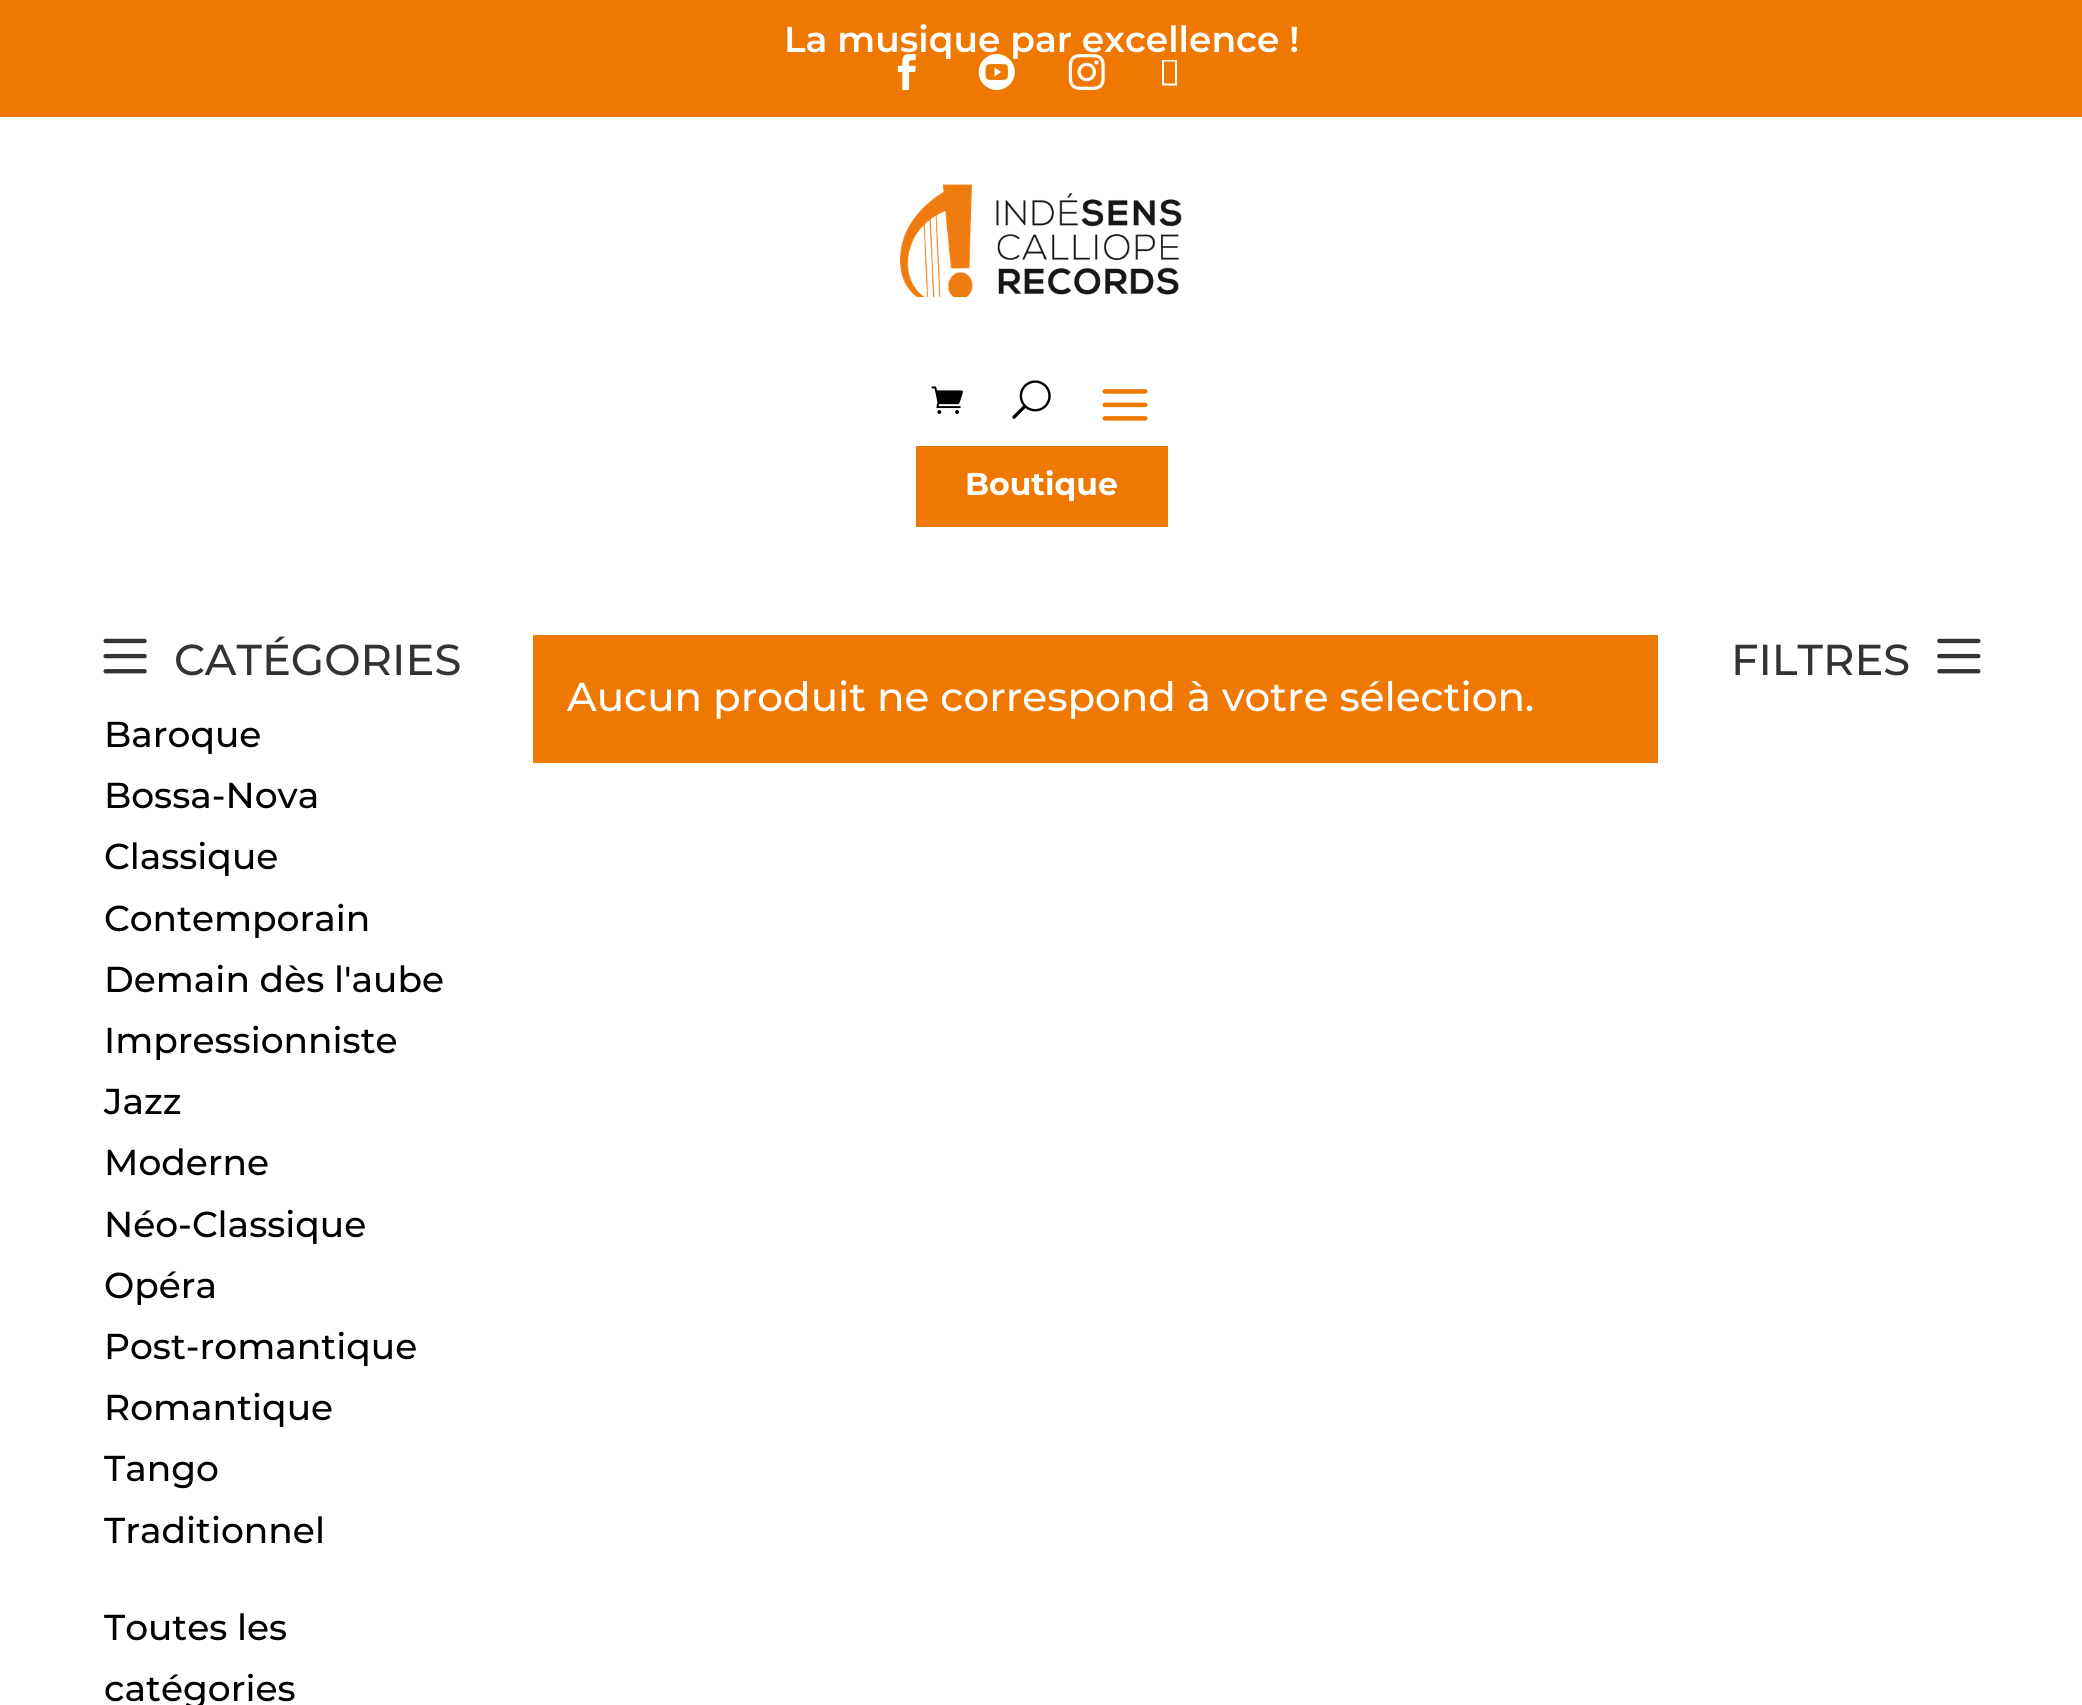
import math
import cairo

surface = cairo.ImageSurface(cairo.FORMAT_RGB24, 2082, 1705)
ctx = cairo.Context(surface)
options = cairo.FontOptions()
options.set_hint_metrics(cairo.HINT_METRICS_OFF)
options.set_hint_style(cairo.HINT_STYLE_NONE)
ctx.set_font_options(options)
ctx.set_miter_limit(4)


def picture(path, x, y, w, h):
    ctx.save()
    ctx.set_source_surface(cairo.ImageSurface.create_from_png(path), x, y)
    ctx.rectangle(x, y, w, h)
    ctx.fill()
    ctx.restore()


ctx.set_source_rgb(1, 1, 1)
ctx.paint()
ctx.set_source_rgb(0.933, 0.471, 0)
ctx.rectangle(0, 0, 2082, 117)
ctx.fill()
ctx.select_font_face("Montserrat SemiBold")
ctx.set_font_size(36)
ctx.set_source_rgb(1, 1, 1)
ctx.move_to(784, 52)
ctx.show_text("La musique par excellence !")
picture("img1.png", 897, 54, 19, 36)
picture("img2.png", 978, 54, 37, 36)
picture("img3.png", 1068, 54, 37, 36)
ctx.new_path()
ctx.move_to(1162, 85.5)
ctx.line_to(1162, 60)
ctx.line_to(1177, 60)
ctx.line_to(1177, 85.5)
ctx.close_path()
ctx.move_to(1164, 83.5)
ctx.line_to(1175, 83.5)
ctx.line_to(1175, 61.5)
ctx.line_to(1164, 61.5)
ctx.close_path()
ctx.fill()
picture("img4.png", 900, 184, 282, 113)
picture("img5.png", 931, 386, 32, 28)
picture("img6.png", 1012, 380, 39, 39)
picture("img7.png", 1102, 389, 46, 32)
ctx.set_source_rgb(0.937, 0.475, 0)
ctx.rectangle(916, 446, 252, 81)
ctx.fill()
ctx.select_font_face("Montserrat", cairo.FONT_SLANT_NORMAL, cairo.FONT_WEIGHT_BOLD)
ctx.set_font_size(31.5)
ctx.set_source_rgb(1, 1, 1)
ctx.move_to(965, 495)
ctx.show_text("Boutique")
picture("img8.png", 103, 638, 44, 36)
ctx.select_font_face("Montserrat Medium")
ctx.set_font_size(43.25)
ctx.set_source_rgb(0.2, 0.2, 0.2)
ctx.move_to(174, 675)
ctx.show_text("CATÉGORIES")
ctx.set_font_size(36)
ctx.set_source_rgb(0, 0, 0)
ctx.move_to(104, 747)
ctx.show_text("Baroque")
ctx.move_to(104, 808)
ctx.show_text("Bossa-Nova")
ctx.move_to(104, 869)
ctx.show_text("Classique")
ctx.move_to(104, 931)
ctx.show_text("Contemporain")
ctx.move_to(104, 992)
ctx.show_text("Demain dès l'aube")
ctx.move_to(104, 1053)
ctx.show_text("Impressionniste")
ctx.move_to(104, 1114)
ctx.show_text("Jazz")
ctx.move_to(104, 1175)
ctx.show_text("Moderne")
ctx.move_to(104, 1237)
ctx.show_text("Néo-Classique")
ctx.move_to(104, 1298)
ctx.show_text("Opéra")
ctx.move_to(104, 1359)
ctx.show_text("Post-romantique")
ctx.move_to(104, 1420)
ctx.show_text("Romantique")
ctx.move_to(104, 1481)
ctx.show_text("Tango")
ctx.move_to(104, 1543)
ctx.show_text("Traditionnel")
ctx.move_to(104, 1640)
ctx.show_text("Toutes les")
ctx.move_to(104, 1701)
ctx.show_text("catégories")
ctx.set_font_size(43.25)
ctx.set_source_rgb(0.2, 0.2, 0.2)
ctx.move_to(1731, 675)
ctx.show_text("FILTRES")
picture("img9.png", 1937, 638, 44, 36)
ctx.set_source_rgb(0.937, 0.475, 0)
ctx.rectangle(533, 635, 1125, 128)
ctx.fill()
ctx.set_font_size(40.5)
ctx.set_source_rgb(1, 1, 1)
ctx.move_to(567, 711)
ctx.show_text("Aucun produit ne correspond à votre sélection.")
surface.write_to_png("page.png")
